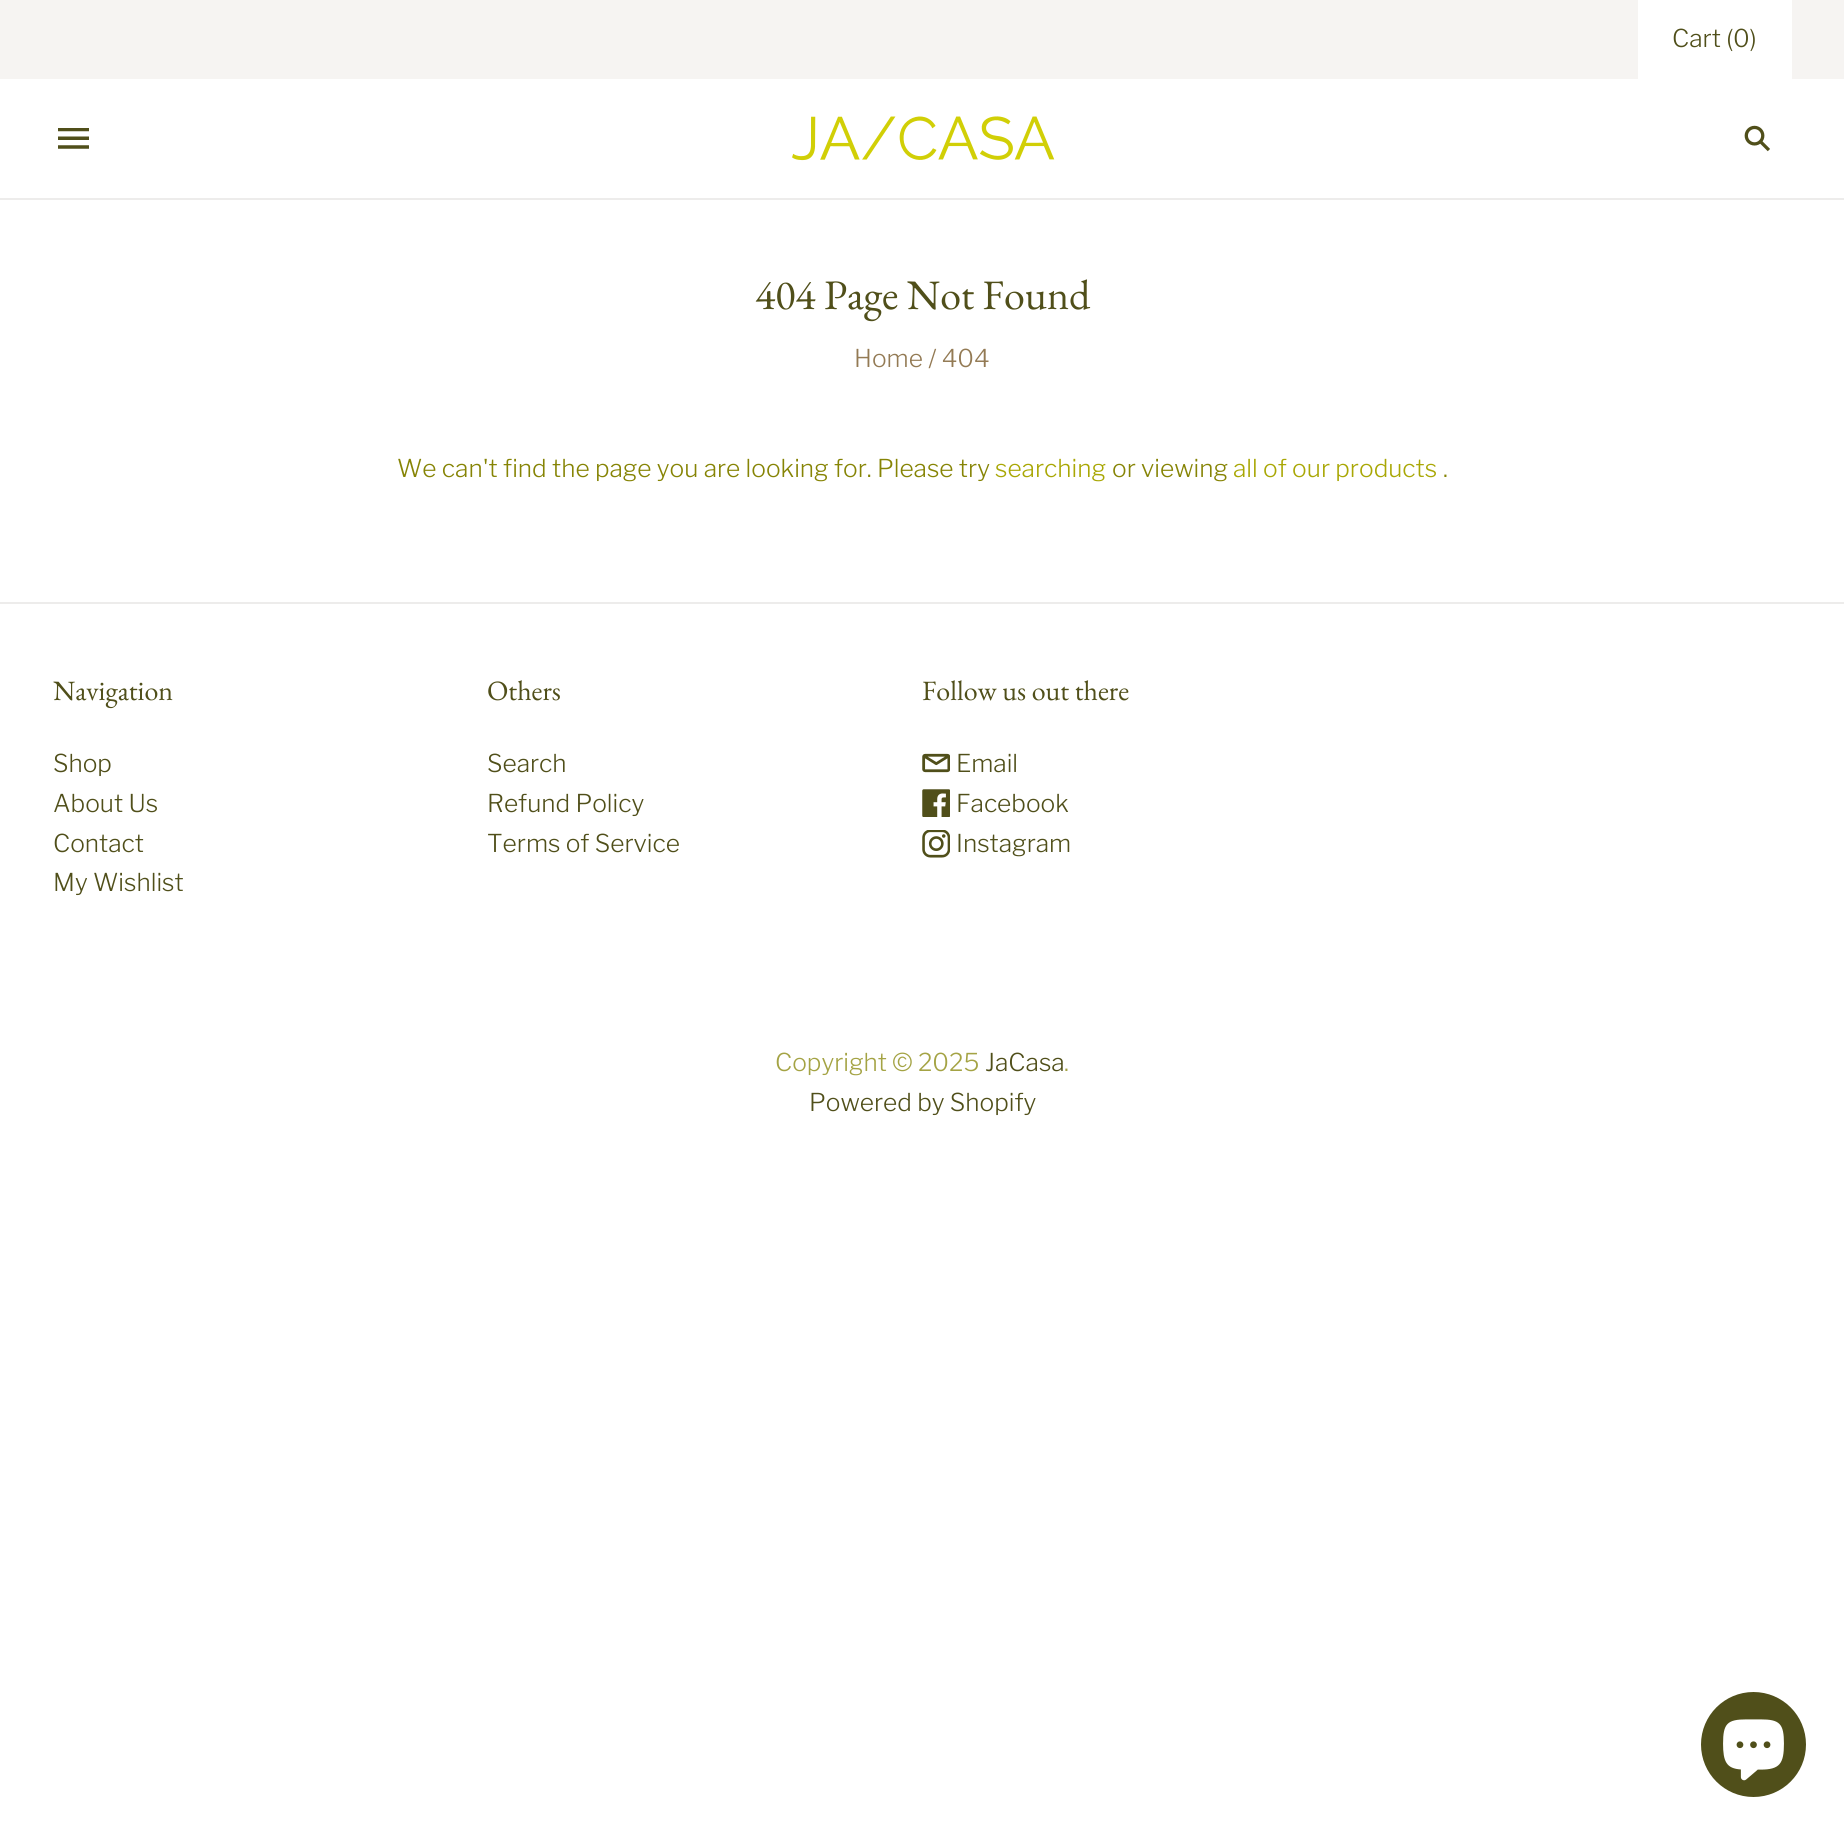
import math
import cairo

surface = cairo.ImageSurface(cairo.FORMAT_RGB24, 1844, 1834)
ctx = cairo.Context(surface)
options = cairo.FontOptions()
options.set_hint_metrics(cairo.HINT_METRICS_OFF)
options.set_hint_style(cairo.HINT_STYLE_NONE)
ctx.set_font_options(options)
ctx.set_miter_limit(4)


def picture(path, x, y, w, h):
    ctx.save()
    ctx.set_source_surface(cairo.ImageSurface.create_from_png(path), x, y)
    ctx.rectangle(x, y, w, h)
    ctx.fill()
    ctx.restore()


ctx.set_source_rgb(1, 1, 1)
ctx.paint()
ctx.set_source_rgb(0.929, 0.925, 0.918)
ctx.rectangle(0, 198, 1844, 2)
ctx.fill()
ctx.set_source_rgb(0.961, 0.957, 0.949)
ctx.rectangle(0, 0, 1844, 79)
ctx.fill()
ctx.set_source_rgb(1, 1, 1)
ctx.rectangle(1638, 0, 154, 79)
ctx.fill()
ctx.select_font_face("Libre Franklin Light")
ctx.set_font_size(24.5)
ctx.set_source_rgb(0.314, 0.31, 0.102)
ctx.move_to(1672, 47)
ctx.show_text("Cart (0)")
picture("img1.png", 58, 128, 31, 21)
picture("img2.png", 792, 116, 263, 45)
picture("img3.png", 1744, 125, 26, 27)
ctx.select_font_face("EB Garamond")
ctx.set_font_size(42)
ctx.move_to(755, 309)
ctx.show_text("404 Page Not Found")
ctx.select_font_face("Libre Franklin Light")
ctx.set_font_size(24.5)
ctx.set_source_rgb(0.576, 0.478, 0.329)
ctx.move_to(854, 367)
ctx.show_text("Home / 404")
ctx.set_source_rgb(0.525, 0.518, 0.02)
ctx.move_to(397, 477)
ctx.show_text("We can't find the page you are looking for. Please try")
ctx.set_source_rgb(0.663, 0.655, 0.02)
ctx.move_to(995, 477)
ctx.show_text("searching")
ctx.set_source_rgb(0.525, 0.518, 0.02)
ctx.move_to(1112, 477)
ctx.show_text("or viewing")
ctx.set_source_rgb(0.663, 0.655, 0.02)
ctx.move_to(1233, 477)
ctx.show_text("all of our products")
ctx.set_source_rgb(0.525, 0.518, 0.02)
ctx.move_to(1443, 477)
ctx.show_text(".")
ctx.set_source_rgb(0.929, 0.925, 0.918)
ctx.rectangle(0, 602, 1844, 2)
ctx.fill()
ctx.select_font_face("EB Garamond")
ctx.set_font_size(28)
ctx.set_source_rgb(0.314, 0.31, 0.102)
ctx.move_to(53, 700)
ctx.show_text("Navigation")
ctx.select_font_face("Libre Franklin Light")
ctx.set_font_size(24.5)
ctx.move_to(53, 772)
ctx.show_text("Shop")
ctx.move_to(53, 812)
ctx.show_text("About Us")
ctx.move_to(53, 852)
ctx.show_text("Contact")
ctx.move_to(53, 891)
ctx.show_text("My Wishlist")
ctx.select_font_face("EB Garamond")
ctx.set_font_size(28)
ctx.move_to(487, 700)
ctx.show_text("Others")
ctx.select_font_face("Libre Franklin Light")
ctx.set_font_size(24.5)
ctx.move_to(487, 772)
ctx.show_text("Search")
ctx.move_to(487, 812)
ctx.show_text("Refund Policy")
ctx.move_to(487, 852)
ctx.show_text("Terms of Service")
ctx.select_font_face("EB Garamond")
ctx.set_font_size(28)
ctx.move_to(922, 700)
ctx.show_text("Follow us out there")
picture("img4.png", 922, 753, 28, 20)
ctx.select_font_face("Libre Franklin Light")
ctx.set_font_size(24.5)
ctx.move_to(956, 772)
ctx.show_text("Email")
picture("img5.png", 922, 789, 28, 28)
ctx.move_to(956, 812)
ctx.show_text("Facebook")
picture("img6.png", 922, 830, 28, 28)
ctx.move_to(956, 852)
ctx.show_text("Instagram")
ctx.set_source_rgb(0.643, 0.639, 0.267)
ctx.move_to(775, 1071)
ctx.show_text("Copyright © 2025")
ctx.set_source_rgb(0.314, 0.31, 0.102)
ctx.move_to(985, 1071)
ctx.show_text("JaCasa")
ctx.set_source_rgb(0.643, 0.639, 0.267)
ctx.move_to(1064, 1071)
ctx.show_text(".")
ctx.set_source_rgb(0.314, 0.31, 0.102)
ctx.move_to(809, 1111)
ctx.show_text("Powered by Shopify")
ctx.new_path()
ctx.arc(1753.5, 1744.5, 52.5, 0, 2 * math.pi)
ctx.fill()
picture("img7.png", 1723, 1719, 61, 62)
surface.write_to_png("page.png")
